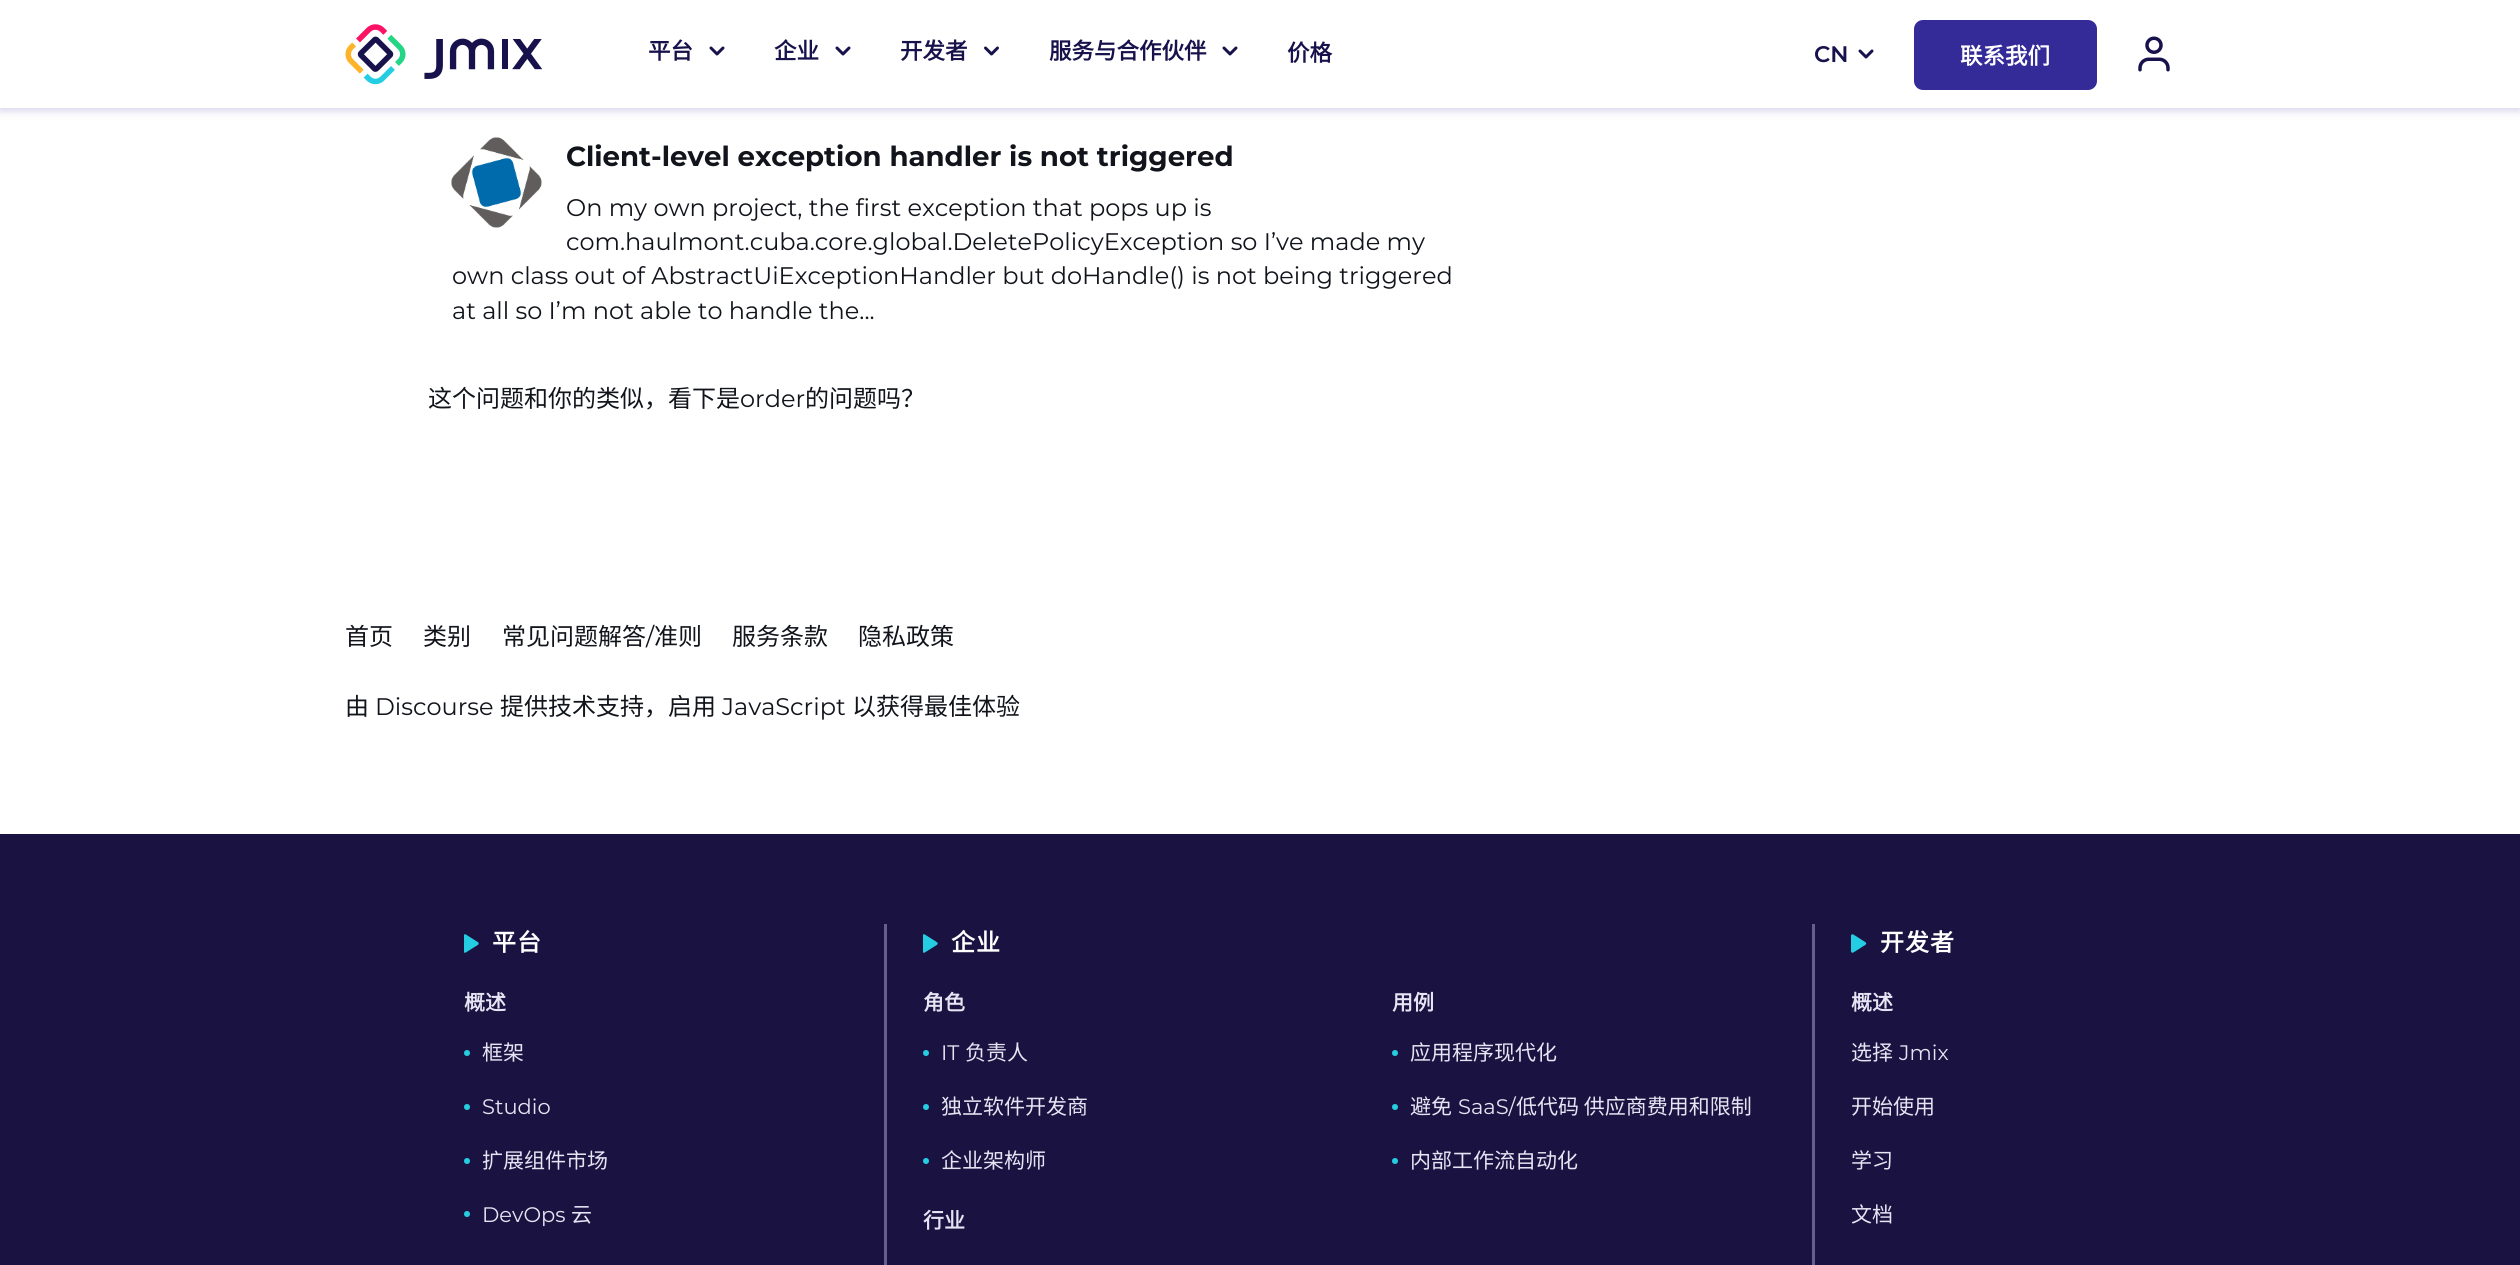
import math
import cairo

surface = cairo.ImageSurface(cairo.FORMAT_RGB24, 2520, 1265)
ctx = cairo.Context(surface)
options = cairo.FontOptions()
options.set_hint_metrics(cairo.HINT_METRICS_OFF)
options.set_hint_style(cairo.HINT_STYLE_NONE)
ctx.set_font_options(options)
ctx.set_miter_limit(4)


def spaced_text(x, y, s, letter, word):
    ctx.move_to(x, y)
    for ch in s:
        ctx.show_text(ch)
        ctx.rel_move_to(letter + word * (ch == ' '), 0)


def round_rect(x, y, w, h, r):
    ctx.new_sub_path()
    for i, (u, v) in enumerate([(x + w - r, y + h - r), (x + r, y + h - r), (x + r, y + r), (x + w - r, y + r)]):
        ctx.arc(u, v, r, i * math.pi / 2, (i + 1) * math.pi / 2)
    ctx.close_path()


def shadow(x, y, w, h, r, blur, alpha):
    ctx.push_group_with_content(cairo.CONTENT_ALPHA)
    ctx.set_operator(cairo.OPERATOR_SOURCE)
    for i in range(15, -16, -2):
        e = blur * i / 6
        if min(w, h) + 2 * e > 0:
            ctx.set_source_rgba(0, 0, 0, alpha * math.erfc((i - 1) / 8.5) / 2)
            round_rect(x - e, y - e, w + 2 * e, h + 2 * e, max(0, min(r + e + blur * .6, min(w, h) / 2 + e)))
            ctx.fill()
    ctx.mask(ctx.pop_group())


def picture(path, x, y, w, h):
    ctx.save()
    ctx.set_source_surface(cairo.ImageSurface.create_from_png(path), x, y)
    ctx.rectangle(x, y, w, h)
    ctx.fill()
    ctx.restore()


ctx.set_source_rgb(1, 1, 1)
ctx.paint()
ctx.set_source_rgb(0.204, 0.165, 0.596)
shadow(0, 3, 2520, 108, 0, 4, 0.2)
ctx.set_source_rgb(1, 1, 1)
ctx.rectangle(0, 0, 2520, 108)
ctx.fill()
picture("img1.png", 345, 24, 198, 61)
ctx.select_font_face("Noto Sans CJK SC", cairo.FONT_SLANT_NORMAL, cairo.FONT_WEIGHT_BOLD)
ctx.set_font_size(22.5)
ctx.set_source_rgb(0.09, 0.071, 0.294)
ctx.move_to(648, 59)
ctx.show_text("平台")
picture("img2.png", 709, 46, 16, 10)
ctx.move_to(774, 59)
ctx.show_text("企业")
picture("img2.png", 835, 46, 16, 10)
ctx.move_to(900, 59)
ctx.show_text("开发者")
picture("img3.png", 984, 46, 15, 10)
ctx.move_to(1049, 59)
ctx.show_text("服务与合作伙伴")
picture("img2.png", 1222, 46, 16, 10)
ctx.move_to(1287, 61)
ctx.show_text("价格")
ctx.select_font_face("Montserrat SemiBold")
ctx.move_to(1814, 62)
ctx.show_text("СN")
picture("img2.png", 1858, 49, 16, 10)
ctx.set_source_rgb(0.204, 0.165, 0.596)
round_rect(1914, 20, 183, 70, 9)
ctx.fill()
ctx.select_font_face("Noto Sans CJK SC", cairo.FONT_SLANT_NORMAL, cairo.FONT_WEIGHT_BOLD)
ctx.set_source_rgb(1, 1, 1)
ctx.move_to(1960, 64)
ctx.show_text("联系我们")
picture("img4.png", 2138, 36, 32, 36)
picture("img5.png", 451, 137, 91, 91)
ctx.select_font_face("Montserrat", cairo.FONT_SLANT_NORMAL, cairo.FONT_WEIGHT_BOLD)
ctx.set_font_size(27.6)
ctx.set_source_rgb(0.067, 0.082, 0.106)
ctx.move_to(566, 166)
ctx.show_text("Client-level exception handler is not triggered")
ctx.select_font_face("Montserrat")
ctx.set_font_size(24)
ctx.move_to(566, 216)
ctx.show_text("On my own project, the first exception that pops up is")
ctx.move_to(566, 250)
ctx.show_text("com.haulmont.cuba.core.global.DeletePolicyException so I’ve made my")
ctx.move_to(452, 284)
ctx.show_text("own class out of AbstractUiExceptionHandler but doHandle() is not being triggered")
ctx.move_to(452, 319)
ctx.show_text("at all so I’m not able to handle the...")
ctx.select_font_face("Noto Sans CJK SC")
ctx.move_to(428, 407)
ctx.show_text("这个问题和你的类似，看下是")
ctx.select_font_face("Montserrat")
ctx.move_to(740, 407)
ctx.show_text("order")
ctx.select_font_face("Noto Sans CJK SC")
ctx.move_to(805, 407)
ctx.show_text("的问题吗？")
ctx.move_to(345, 645)
ctx.show_text("首页")
ctx.move_to(423, 645)
ctx.show_text("类别")
ctx.move_to(502, 645)
ctx.show_text("常见问题解答")
ctx.select_font_face("Montserrat")
ctx.move_to(646, 645)
ctx.show_text("/")
ctx.select_font_face("Noto Sans CJK SC")
ctx.move_to(654, 645)
ctx.show_text("准则")
ctx.move_to(732, 645)
ctx.show_text("服务条款")
ctx.move_to(858, 645)
ctx.show_text("隐私政策")
ctx.move_to(345, 715)
ctx.show_text("由")
ctx.select_font_face("Montserrat")
ctx.move_to(375, 715)
ctx.show_text("Discourse")
ctx.select_font_face("Noto Sans CJK SC")
ctx.move_to(500, 715)
ctx.show_text("提供技术支持，启用")
ctx.select_font_face("Montserrat")
ctx.move_to(722, 715)
ctx.show_text("JavaScript")
ctx.select_font_face("Noto Sans CJK SC")
ctx.move_to(852, 715)
ctx.show_text("以获得最佳体验")
ctx.set_source_rgb(0.102, 0.075, 0.255)
ctx.rectangle(0, 834, 2520, 431)
ctx.fill()
ctx.set_source_rgb(0.392, 0.373, 0.549)
ctx.rectangle(884, 924, 3, 341)
ctx.fill()
picture("img6.png", 464, 934, 15, 19)
ctx.select_font_face("Noto Sans CJK SC", cairo.FONT_SLANT_NORMAL, cairo.FONT_WEIGHT_BOLD)
ctx.set_source_rgb(1, 1, 1)
spaced_text(492, 951, "平台", 1, 0)
ctx.set_font_size(21)
ctx.set_source_rgb(0.906, 0.894, 0.953)
ctx.move_to(464, 1010)
ctx.show_text("概述")
ctx.set_source_rgb(0.145, 0.804, 0.89)
ctx.new_path()
ctx.arc(467, 1053, 3, 0, 2 * math.pi)
ctx.fill()
ctx.select_font_face("Noto Sans CJK SC")
ctx.set_source_rgb(0.906, 0.894, 0.953)
ctx.move_to(482, 1060)
ctx.show_text("框架")
ctx.set_source_rgb(0.145, 0.804, 0.89)
ctx.new_path()
ctx.arc(467, 1107, 3, 0, 2 * math.pi)
ctx.fill()
ctx.select_font_face("Montserrat")
ctx.set_source_rgb(0.906, 0.894, 0.953)
ctx.move_to(482, 1114)
ctx.show_text("Studio")
ctx.set_source_rgb(0.145, 0.804, 0.89)
ctx.new_path()
ctx.arc(467, 1161, 3, 0, 2 * math.pi)
ctx.fill()
ctx.select_font_face("Noto Sans CJK SC")
ctx.set_source_rgb(0.906, 0.894, 0.953)
ctx.move_to(482, 1168)
ctx.show_text("扩展组件市场")
ctx.set_source_rgb(0.145, 0.804, 0.89)
ctx.new_path()
ctx.arc(467, 1214, 3, 0, 2 * math.pi)
ctx.fill()
ctx.select_font_face("Montserrat")
ctx.set_source_rgb(0.906, 0.894, 0.953)
ctx.move_to(482, 1222)
ctx.show_text("DevOps")
ctx.select_font_face("Noto Sans CJK SC")
ctx.move_to(571, 1222)
ctx.show_text("云")
ctx.set_source_rgb(0.392, 0.373, 0.549)
ctx.rectangle(1812, 924, 3, 341)
ctx.fill()
picture("img6.png", 923, 934, 15, 19)
ctx.select_font_face("Noto Sans CJK SC", cairo.FONT_SLANT_NORMAL, cairo.FONT_WEIGHT_BOLD)
ctx.set_font_size(24)
ctx.set_source_rgb(1, 1, 1)
spaced_text(951, 951, "企业", 1, 0)
ctx.set_font_size(21)
ctx.set_source_rgb(0.906, 0.894, 0.953)
ctx.move_to(923, 1010)
ctx.show_text("角色")
ctx.set_source_rgb(0.145, 0.804, 0.89)
ctx.new_path()
ctx.arc(926, 1053, 3, 0, 2 * math.pi)
ctx.fill()
ctx.select_font_face("Montserrat")
ctx.set_source_rgb(0.906, 0.894, 0.953)
ctx.move_to(941, 1060)
ctx.show_text("IT")
ctx.select_font_face("Noto Sans CJK SC")
ctx.move_to(965, 1060)
ctx.show_text("负责人")
ctx.set_source_rgb(0.145, 0.804, 0.89)
ctx.new_path()
ctx.arc(926, 1107, 3, 0, 2 * math.pi)
ctx.fill()
ctx.set_source_rgb(0.906, 0.894, 0.953)
ctx.move_to(941, 1114)
ctx.show_text("独立软件开发商")
ctx.set_source_rgb(0.145, 0.804, 0.89)
ctx.new_path()
ctx.arc(926, 1161, 3, 0, 2 * math.pi)
ctx.fill()
ctx.set_source_rgb(0.906, 0.894, 0.953)
ctx.move_to(941, 1168)
ctx.show_text("企业架构师")
ctx.select_font_face("Noto Sans CJK SC", cairo.FONT_SLANT_NORMAL, cairo.FONT_WEIGHT_BOLD)
ctx.move_to(923, 1228)
ctx.show_text("行业")
ctx.move_to(1392, 1010)
ctx.show_text("用例")
ctx.set_source_rgb(0.145, 0.804, 0.89)
ctx.new_path()
ctx.arc(1395, 1053, 3, 0, 2 * math.pi)
ctx.fill()
ctx.select_font_face("Noto Sans CJK SC")
ctx.set_source_rgb(0.906, 0.894, 0.953)
ctx.move_to(1410, 1060)
ctx.show_text("应用程序现代化")
ctx.set_source_rgb(0.145, 0.804, 0.89)
ctx.new_path()
ctx.arc(1395, 1107, 3, 0, 2 * math.pi)
ctx.fill()
ctx.set_source_rgb(0.906, 0.894, 0.953)
ctx.move_to(1410, 1114)
ctx.show_text("避免")
ctx.select_font_face("Montserrat")
ctx.move_to(1458, 1114)
ctx.show_text("SaaS/")
ctx.select_font_face("Noto Sans CJK SC")
ctx.move_to(1516, 1114)
ctx.show_text("低代码 供应商费用和限制")
ctx.set_source_rgb(0.145, 0.804, 0.89)
ctx.new_path()
ctx.arc(1395, 1161, 3, 0, 2 * math.pi)
ctx.fill()
ctx.set_source_rgb(0.906, 0.894, 0.953)
ctx.move_to(1410, 1168)
ctx.show_text("内部工作流自动化")
picture("img7.png", 1851, 934, 16, 19)
ctx.select_font_face("Noto Sans CJK SC", cairo.FONT_SLANT_NORMAL, cairo.FONT_WEIGHT_BOLD)
ctx.set_font_size(24)
ctx.set_source_rgb(1, 1, 1)
spaced_text(1880, 951, "开发者", 1, 0)
ctx.set_font_size(21)
ctx.set_source_rgb(0.906, 0.894, 0.953)
ctx.move_to(1851, 1010)
ctx.show_text("概述")
ctx.select_font_face("Noto Sans CJK SC")
ctx.move_to(1851, 1060)
ctx.show_text("选择")
ctx.select_font_face("Montserrat")
ctx.move_to(1899, 1060)
ctx.show_text("Jmix")
ctx.select_font_face("Noto Sans CJK SC")
ctx.move_to(1851, 1114)
ctx.show_text("开始使用")
ctx.move_to(1851, 1168)
ctx.show_text("学习")
ctx.move_to(1851, 1222)
ctx.show_text("文档")
surface.write_to_png("page.png")
